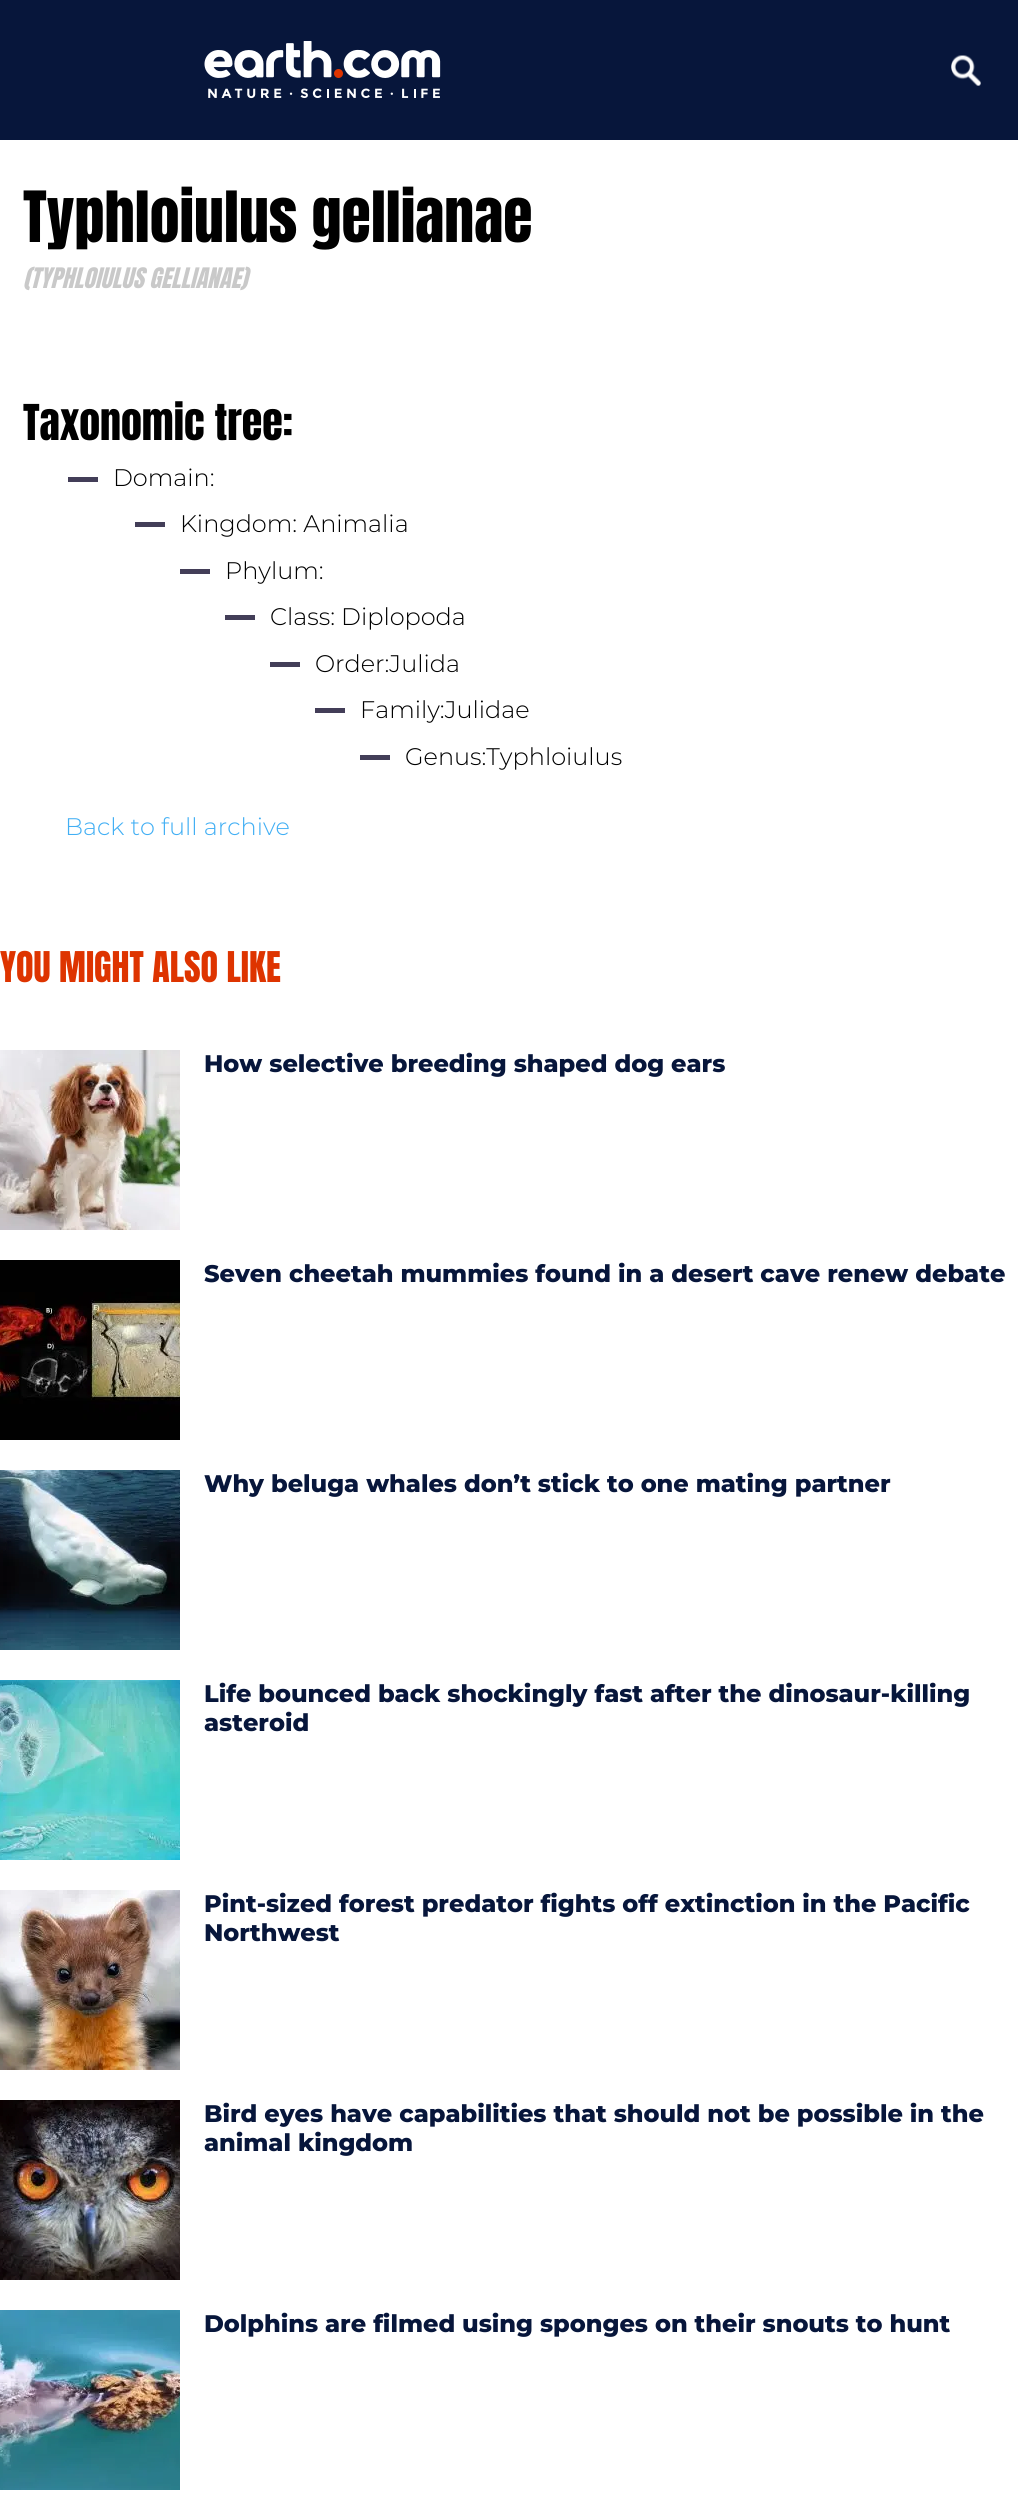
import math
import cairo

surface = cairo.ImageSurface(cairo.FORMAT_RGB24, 1018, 2508)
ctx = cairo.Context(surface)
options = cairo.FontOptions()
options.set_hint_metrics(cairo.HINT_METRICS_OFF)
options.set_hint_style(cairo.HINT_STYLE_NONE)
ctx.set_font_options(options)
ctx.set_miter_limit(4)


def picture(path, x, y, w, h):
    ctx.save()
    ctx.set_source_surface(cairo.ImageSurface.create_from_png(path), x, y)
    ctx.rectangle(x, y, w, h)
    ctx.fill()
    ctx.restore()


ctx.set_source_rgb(1, 1, 1)
ctx.paint()
ctx.set_source_rgb(0.031, 0.086, 0.231)
ctx.rectangle(0, 0, 1018, 140)
ctx.fill()
picture("img1.png", 204, 41, 237, 58)
picture("img2.png", 951, 55, 30, 31)
ctx.select_font_face("Anton")
ctx.set_font_size(60)
ctx.set_source_rgb(0, 0, 0)
ctx.move_to(23, 242)
ctx.show_text("Typhloiulus gellianae")
ctx.select_font_face("Anton", cairo.FONT_SLANT_ITALIC)
ctx.set_font_size(24)
ctx.set_source_rgb(0.788, 0.788, 0.788)
ctx.move_to(23, 288)
ctx.show_text("(TYPHLOIULUS GELLIANAE)")
ctx.select_font_face("Anton")
ctx.set_font_size(42)
ctx.set_source_rgb(0, 0, 0)
ctx.move_to(23, 440)
ctx.show_text("Taxonomic tree:")
ctx.set_source_rgb(0.263, 0.243, 0.345)
ctx.rectangle(68, 477, 30, 5)
ctx.fill()
ctx.select_font_face("Montserrat Light")
ctx.set_font_size(24)
ctx.set_source_rgb(0, 0, 0)
ctx.move_to(113, 486)
ctx.show_text("Domain:")
ctx.set_source_rgb(0.263, 0.243, 0.345)
ctx.rectangle(135, 522, 30, 5)
ctx.fill()
ctx.set_source_rgb(0, 0, 0)
ctx.move_to(180, 532)
ctx.show_text("Kingdom: Animalia")
ctx.set_source_rgb(0.263, 0.243, 0.345)
ctx.rectangle(180, 569, 30, 5)
ctx.fill()
ctx.set_source_rgb(0, 0, 0)
ctx.move_to(225, 579)
ctx.show_text("Phylum:")
ctx.set_source_rgb(0.263, 0.243, 0.345)
ctx.rectangle(225, 615, 30, 5)
ctx.fill()
ctx.set_source_rgb(0, 0, 0)
ctx.move_to(270, 625)
ctx.show_text("Class: Diplopoda")
ctx.set_source_rgb(0.263, 0.243, 0.345)
ctx.rectangle(270, 662, 30, 5)
ctx.fill()
ctx.set_source_rgb(0, 0, 0)
ctx.move_to(315, 672)
ctx.show_text("Order:Julida")
ctx.set_source_rgb(0.263, 0.243, 0.345)
ctx.rectangle(315, 708, 30, 5)
ctx.fill()
ctx.set_source_rgb(0, 0, 0)
ctx.move_to(360, 718)
ctx.show_text("Family:Julidae")
ctx.set_source_rgb(0.263, 0.243, 0.345)
ctx.rectangle(360, 755, 30, 5)
ctx.fill()
ctx.set_source_rgb(0, 0, 0)
ctx.move_to(405, 765)
ctx.show_text("Genus:Typhloiulus")
ctx.select_font_face("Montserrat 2 Light")
ctx.set_source_rgb(0.259, 0.686, 0.957)
ctx.move_to(65, 835)
ctx.show_text("Back to full archive")
ctx.select_font_face("Anton")
ctx.set_font_size(36)
ctx.set_source_rgb(0.871, 0.204, 0)
ctx.move_to(0, 982)
ctx.show_text("YOU MIGHT ALSO LIKE")
picture("img3.png", 0, 1050, 180, 180)
ctx.select_font_face("Montserrat ExtraBold")
ctx.set_font_size(24)
ctx.set_source_rgb(0.031, 0.086, 0.231)
ctx.move_to(204, 1072)
ctx.show_text("How selective breeding shaped dog ears")
picture("img4.png", 0, 1260, 180, 180)
ctx.move_to(204, 1282)
ctx.show_text("Seven cheetah mummies found in a desert cave renew debate")
picture("img5.png", 0, 1470, 180, 180)
ctx.move_to(204, 1492)
ctx.show_text("Why beluga whales don’t stick to one mating partner")
picture("img6.png", 0, 1680, 180, 180)
ctx.move_to(204, 1702)
ctx.show_text("Life bounced back shockingly fast after the dinosaur-killing")
ctx.move_to(204, 1731)
ctx.show_text("asteroid")
picture("img7.png", 0, 1890, 180, 180)
ctx.move_to(204, 1912)
ctx.show_text("Pint-sized forest predator fights off extinction in the Pacific")
ctx.move_to(204, 1941)
ctx.show_text("Northwest")
picture("img8.png", 0, 2100, 180, 180)
ctx.move_to(204, 2122)
ctx.show_text("Bird eyes have capabilities that should not be possible in the")
ctx.move_to(204, 2151)
ctx.show_text("animal kingdom")
picture("img9.png", 0, 2310, 180, 180)
ctx.move_to(204, 2332)
ctx.show_text("Dolphins are filmed using sponges on their snouts to hunt")
surface.write_to_png("page.png")
